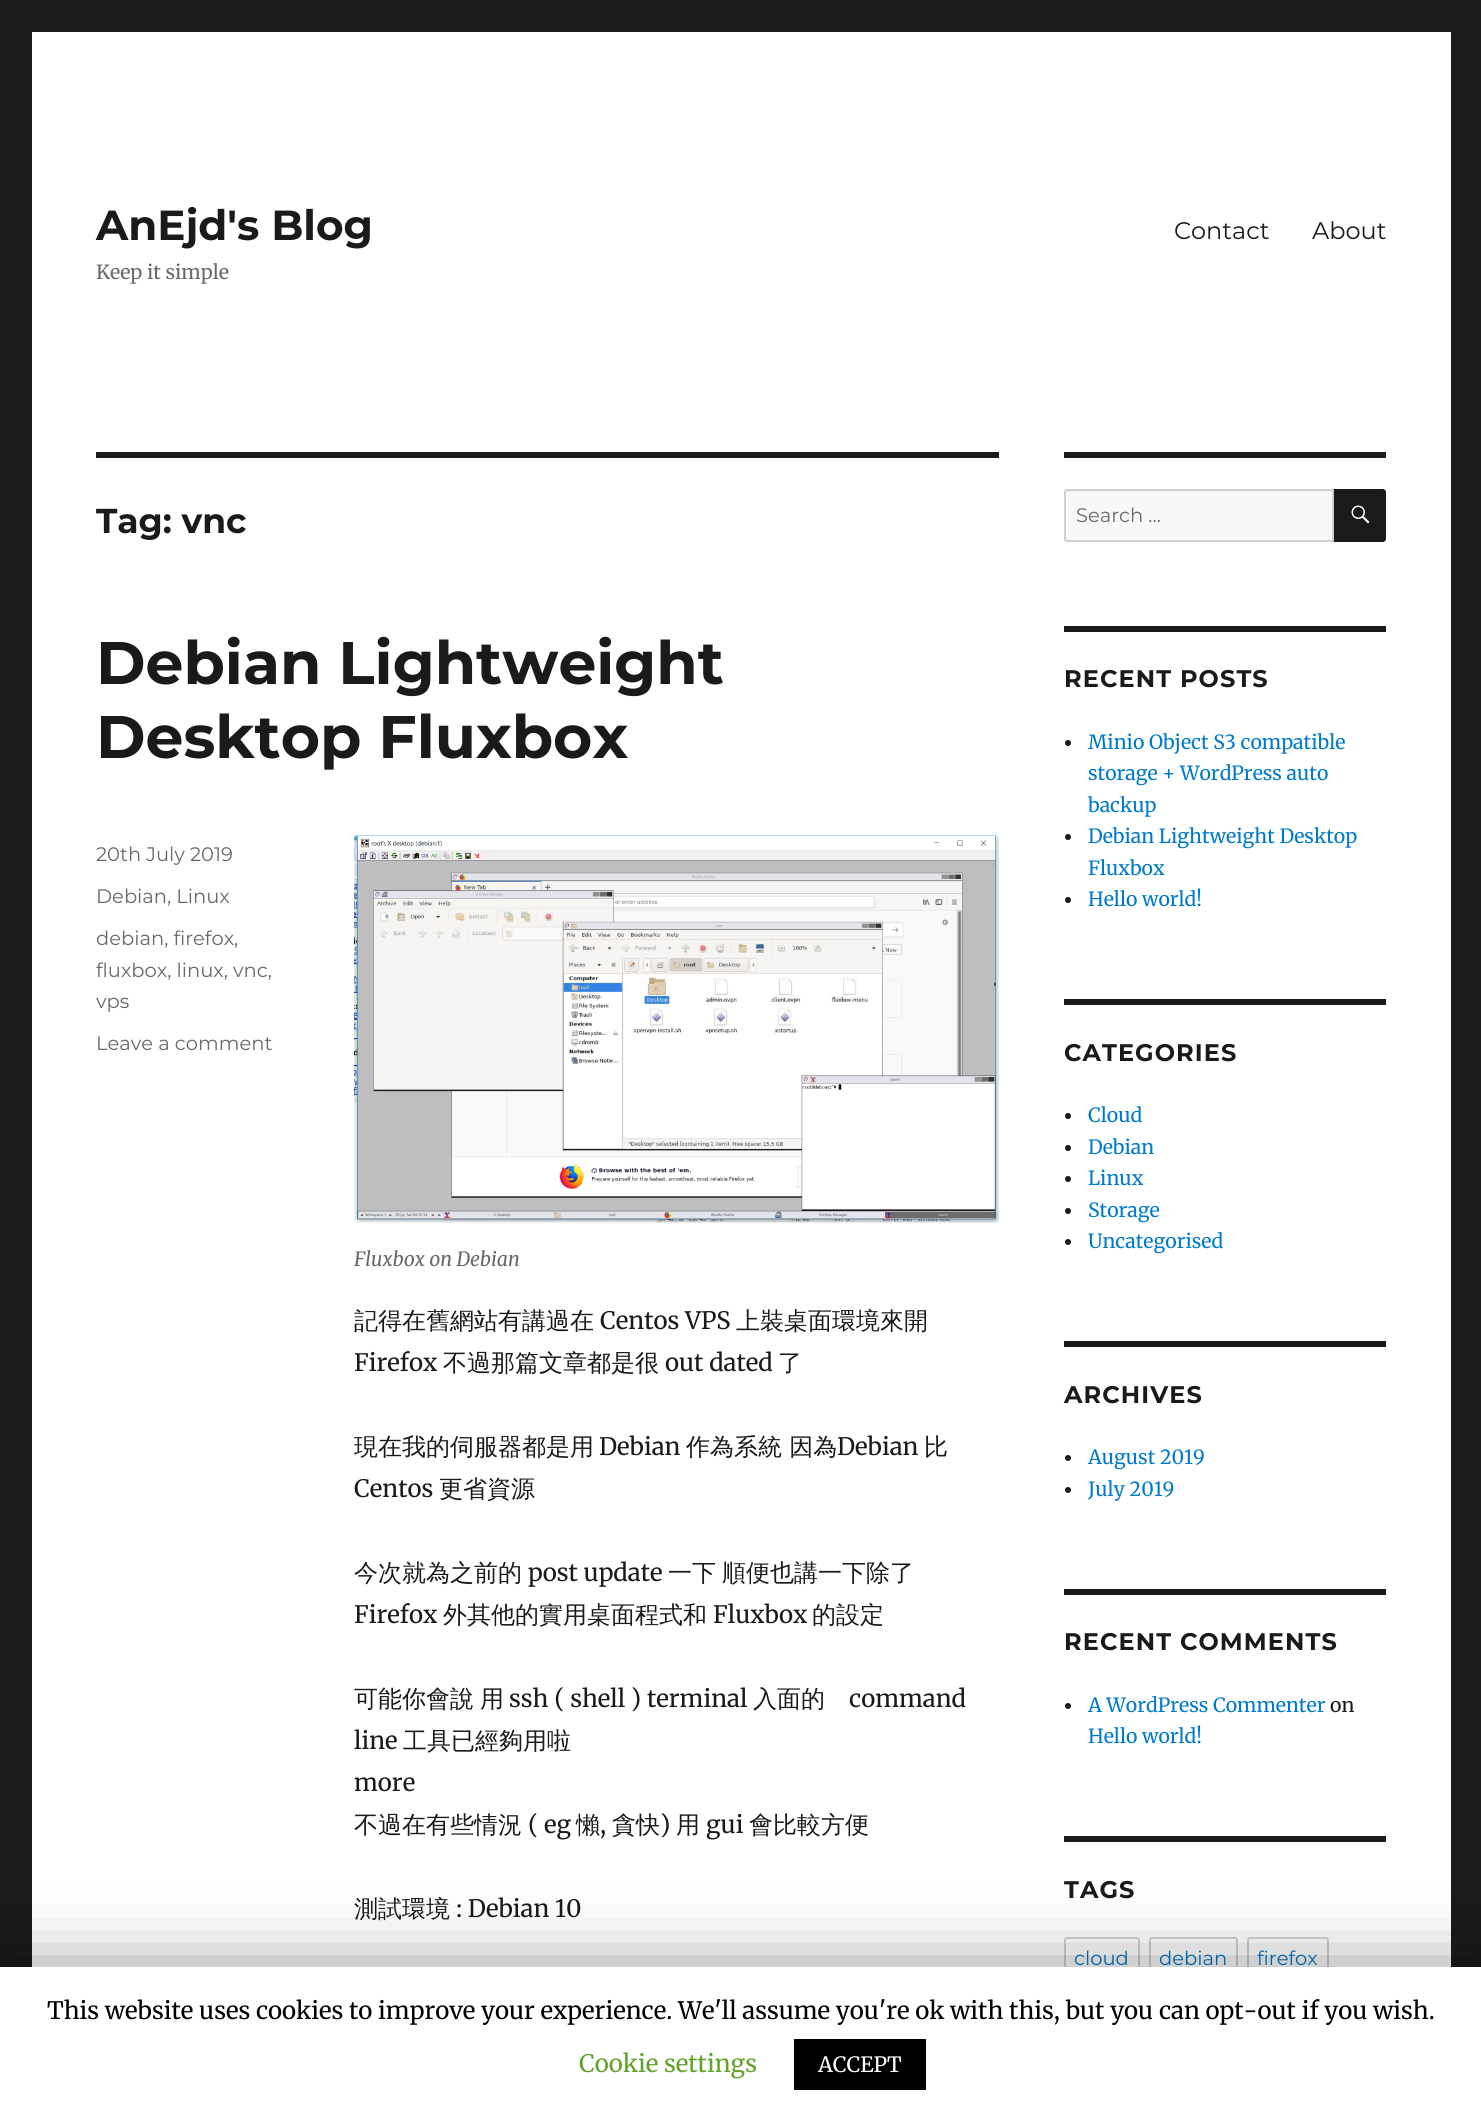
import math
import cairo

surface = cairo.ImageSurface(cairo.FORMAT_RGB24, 1481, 2116)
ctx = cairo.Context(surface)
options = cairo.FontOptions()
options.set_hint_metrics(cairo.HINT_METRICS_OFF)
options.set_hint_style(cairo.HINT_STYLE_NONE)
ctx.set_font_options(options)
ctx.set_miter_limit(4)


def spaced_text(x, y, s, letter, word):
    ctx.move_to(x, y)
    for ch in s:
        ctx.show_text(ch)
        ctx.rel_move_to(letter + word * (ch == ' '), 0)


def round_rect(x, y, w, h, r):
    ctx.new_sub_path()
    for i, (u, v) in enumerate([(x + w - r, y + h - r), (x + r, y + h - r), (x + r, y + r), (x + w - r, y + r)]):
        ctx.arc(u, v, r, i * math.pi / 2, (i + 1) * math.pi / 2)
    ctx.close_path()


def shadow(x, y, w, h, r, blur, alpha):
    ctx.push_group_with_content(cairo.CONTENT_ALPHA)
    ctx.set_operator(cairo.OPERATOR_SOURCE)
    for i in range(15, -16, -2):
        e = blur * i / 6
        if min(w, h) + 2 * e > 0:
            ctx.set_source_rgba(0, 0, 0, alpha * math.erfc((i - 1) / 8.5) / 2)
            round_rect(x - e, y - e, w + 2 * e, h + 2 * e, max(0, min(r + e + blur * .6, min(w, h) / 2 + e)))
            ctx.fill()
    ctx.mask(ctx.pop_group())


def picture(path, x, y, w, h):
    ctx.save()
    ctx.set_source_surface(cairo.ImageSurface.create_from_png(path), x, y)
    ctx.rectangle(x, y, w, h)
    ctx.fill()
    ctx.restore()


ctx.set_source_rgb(0.102, 0.102, 0.102)
ctx.paint()
ctx.set_source_rgb(1, 1, 1)
ctx.rectangle(32, 32, 1419, 1935)
ctx.fill()
ctx.select_font_face("Montserrat", cairo.FONT_SLANT_NORMAL, cairo.FONT_WEIGHT_BOLD)
ctx.set_font_size(42)
ctx.set_source_rgb(0.102, 0.102, 0.102)
ctx.move_to(96, 240)
ctx.show_text("AnEjd's Blog")
ctx.select_font_face("Merriweather")
ctx.set_font_size(19.5)
ctx.set_source_rgb(0.408, 0.408, 0.408)
ctx.move_to(96, 279)
ctx.show_text("Keep it simple")
ctx.select_font_face("Montserrat")
ctx.set_font_size(24)
ctx.set_source_rgb(0.102, 0.102, 0.102)
ctx.move_to(1174, 239)
ctx.show_text("Contact")
ctx.move_to(1312, 239)
ctx.show_text("About")
ctx.rectangle(96, 452, 903, 6)
ctx.fill()
ctx.select_font_face("Montserrat", cairo.FONT_SLANT_NORMAL, cairo.FONT_WEIGHT_BOLD)
ctx.set_font_size(34.5)
ctx.move_to(96, 533)
ctx.show_text("Tag: vnc")
ctx.set_font_size(60)
ctx.move_to(96, 684)
ctx.show_text("Debian Lightweight")
ctx.move_to(96, 758)
ctx.show_text("Desktop Fluxbox")
ctx.select_font_face("Montserrat")
ctx.set_font_size(19.5)
ctx.set_source_rgb(0.408, 0.408, 0.408)
ctx.move_to(96, 861)
ctx.show_text("20th July 2019")
ctx.move_to(96, 903)
ctx.show_text("Debian, Linux")
ctx.move_to(96, 945)
ctx.show_text("debian, firefox,")
ctx.move_to(96, 977)
ctx.show_text("fluxbox, linux, vnc,")
ctx.move_to(96, 1008)
ctx.show_text("vps")
ctx.move_to(96, 1050)
ctx.show_text("Leave a comment")
picture("img1.png", 354, 835, 645, 388)
ctx.select_font_face("Merriweather", cairo.FONT_SLANT_ITALIC)
ctx.move_to(354, 1266)
ctx.show_text("Fluxbox on Debian")
ctx.select_font_face("WenQuanYi Zen Hei Medium")
ctx.set_font_size(24)
ctx.set_source_rgb(0.102, 0.102, 0.102)
ctx.move_to(354, 1329)
ctx.show_text("記得在舊網站有講過在")
ctx.select_font_face("Merriweather")
ctx.move_to(600, 1329)
ctx.show_text("Centos VPS")
ctx.select_font_face("WenQuanYi Zen Hei Medium")
ctx.move_to(736, 1329)
ctx.show_text("上裝桌面環境來開")
ctx.select_font_face("Merriweather")
ctx.move_to(354, 1371)
ctx.show_text("Firefox")
ctx.select_font_face("WenQuanYi Zen Hei Medium")
ctx.move_to(443, 1371)
ctx.show_text("不過那篇文章都是很")
ctx.select_font_face("Merriweather")
ctx.move_to(665, 1371)
ctx.show_text("out dated")
ctx.select_font_face("WenQuanYi Zen Hei Medium")
ctx.move_to(778, 1371)
ctx.show_text("了")
ctx.move_to(354, 1455)
ctx.show_text("現在我的伺服器都是用")
ctx.select_font_face("Merriweather")
ctx.move_to(599, 1455)
ctx.show_text("Debian")
ctx.select_font_face("WenQuanYi Zen Hei Medium")
ctx.move_to(686, 1455)
ctx.show_text("作為系統 因為")
ctx.select_font_face("Merriweather")
ctx.move_to(837, 1455)
ctx.show_text("Debian")
ctx.select_font_face("WenQuanYi Zen Hei Medium")
ctx.move_to(924, 1455)
ctx.show_text("比")
ctx.select_font_face("Merriweather")
ctx.move_to(354, 1497)
ctx.show_text("Centos")
ctx.select_font_face("WenQuanYi Zen Hei Medium")
ctx.move_to(439, 1497)
ctx.show_text("更省資源")
ctx.move_to(354, 1581)
ctx.show_text("今次就為之前的")
ctx.select_font_face("Merriweather")
ctx.move_to(528, 1581)
ctx.show_text("post update")
ctx.select_font_face("WenQuanYi Zen Hei Medium")
ctx.move_to(668, 1581)
ctx.show_text("一下")
ctx.move_to(722, 1581)
ctx.show_text("順便也講一下除了")
ctx.select_font_face("Merriweather")
ctx.move_to(354, 1623)
ctx.show_text("Firefox")
ctx.select_font_face("WenQuanYi Zen Hei Medium")
ctx.move_to(443, 1623)
ctx.show_text("外其他的實用桌面程式和")
ctx.select_font_face("Merriweather")
ctx.move_to(713, 1623)
ctx.show_text("Fluxbox")
ctx.select_font_face("WenQuanYi Zen Hei Medium")
ctx.move_to(812, 1623)
ctx.show_text("的設定")
ctx.move_to(354, 1707)
ctx.show_text("可能你會說")
ctx.move_to(480, 1707)
ctx.show_text("用")
ctx.select_font_face("Merriweather")
ctx.move_to(509, 1707)
ctx.show_text("ssh ( shell ) terminal")
ctx.select_font_face("WenQuanYi Zen Hei Medium")
ctx.move_to(753, 1707)
ctx.show_text("入面的")
ctx.select_font_face("Merriweather")
ctx.move_to(849, 1707)
ctx.show_text("command")
ctx.move_to(354, 1749)
ctx.show_text("line")
ctx.select_font_face("WenQuanYi Zen Hei Medium")
ctx.move_to(403, 1749)
ctx.show_text("工具已經夠用啦")
ctx.select_font_face("Merriweather")
ctx.move_to(354, 1791)
ctx.show_text("more")
ctx.select_font_face("WenQuanYi Zen Hei Medium")
ctx.move_to(354, 1833)
ctx.show_text("不過在有些情況")
ctx.select_font_face("Merriweather")
ctx.move_to(528, 1833)
ctx.show_text("( eg")
ctx.select_font_face("WenQuanYi Zen Hei Medium")
ctx.move_to(576, 1833)
ctx.show_text("懶")
ctx.select_font_face("Merriweather")
ctx.move_to(600, 1833)
ctx.show_text(",")
ctx.select_font_face("WenQuanYi Zen Hei Medium")
ctx.move_to(612, 1833)
ctx.show_text("貪快")
ctx.select_font_face("Merriweather")
ctx.move_to(660, 1833)
ctx.show_text(")")
ctx.select_font_face("WenQuanYi Zen Hei Medium")
ctx.move_to(676, 1833)
ctx.show_text("用")
ctx.select_font_face("Merriweather")
ctx.move_to(706, 1833)
ctx.show_text("gui")
ctx.select_font_face("WenQuanYi Zen Hei Medium")
ctx.move_to(749, 1833)
ctx.show_text("會比較方便")
ctx.move_to(354, 1917)
ctx.show_text("測試環境")
ctx.select_font_face("Merriweather")
ctx.move_to(456, 1917)
ctx.show_text(": Debian 10")
ctx.rectangle(1064, 452, 322, 6)
ctx.fill()
ctx.set_source_rgb(0.969, 0.969, 0.969)
ctx.new_path()
ctx.move_to(1067, 490)
ctx.line_to(1333, 490)
ctx.line_to(1333, 541)
ctx.line_to(1067, 541)
ctx.curve_to(1066, 541, 1065, 540, 1065, 539)
ctx.line_to(1065, 492)
ctx.curve_to(1065, 491, 1066, 490, 1067, 490)
ctx.close_path()
ctx.fill_preserve()
ctx.set_source_rgb(0.82, 0.82, 0.82)
ctx.stroke()
ctx.select_font_face("Montserrat")
ctx.set_font_size(19.5)
ctx.set_source_rgb(0.408, 0.408, 0.408)
ctx.move_to(1076, 522)
ctx.show_text("Search …")
ctx.set_source_rgb(0.102, 0.102, 0.102)
ctx.new_path()
ctx.move_to(1334, 489)
ctx.line_to(1383, 489)
ctx.curve_to(1384.5, 489, 1386, 490.5, 1386, 492)
ctx.line_to(1386, 539)
ctx.curve_to(1386, 540.5, 1384.5, 542, 1383, 542)
ctx.line_to(1334, 542)
ctx.close_path()
ctx.fill()
picture("img2.png", 1351, 505, 19, 19)
ctx.rectangle(1064, 626, 322, 6)
ctx.fill()
ctx.select_font_face("Montserrat", cairo.FONT_SLANT_NORMAL, cairo.FONT_WEIGHT_BOLD)
ctx.set_font_size(24)
spaced_text(1064, 687, "RECENT POSTS", 1.1, 0)
ctx.new_path()
ctx.arc(1068, 743, 3, 0, 2 * math.pi)
ctx.fill()
ctx.select_font_face("Merriweather")
ctx.set_font_size(19.5)
ctx.set_source_rgb(0, 0.478, 0.8)
ctx.move_to(1088, 749)
ctx.show_text("Minio Object S3 compatible")
ctx.move_to(1088, 780)
ctx.show_text("storage + WordPress auto")
ctx.move_to(1088, 812)
ctx.show_text("backup")
ctx.set_source_rgb(0.102, 0.102, 0.102)
ctx.new_path()
ctx.arc(1068, 837, 3, 0, 2 * math.pi)
ctx.fill()
ctx.set_source_rgb(0, 0.478, 0.8)
ctx.move_to(1088, 843)
ctx.show_text("Debian Lightweight Desktop")
ctx.move_to(1088, 875)
ctx.show_text("Fluxbox")
ctx.set_source_rgb(0.102, 0.102, 0.102)
ctx.new_path()
ctx.arc(1068, 900, 3, 0, 2 * math.pi)
ctx.fill()
ctx.set_source_rgb(0, 0.478, 0.8)
ctx.move_to(1088, 906)
ctx.show_text("Hello world!")
ctx.set_source_rgb(0.102, 0.102, 0.102)
ctx.rectangle(1064, 999, 322, 6)
ctx.fill()
ctx.select_font_face("Montserrat", cairo.FONT_SLANT_NORMAL, cairo.FONT_WEIGHT_BOLD)
ctx.set_font_size(24)
spaced_text(1064, 1061, "CATEGORIES", 1.1, 0)
ctx.new_path()
ctx.arc(1068, 1116, 3, 0, 2 * math.pi)
ctx.fill()
ctx.select_font_face("Merriweather")
ctx.set_font_size(19.5)
ctx.set_source_rgb(0, 0.478, 0.8)
ctx.move_to(1088, 1122)
ctx.show_text("Cloud")
ctx.set_source_rgb(0.102, 0.102, 0.102)
ctx.new_path()
ctx.arc(1068, 1148, 3, 0, 2 * math.pi)
ctx.fill()
ctx.set_source_rgb(0, 0.478, 0.8)
ctx.move_to(1088, 1154)
ctx.show_text("Debian")
ctx.set_source_rgb(0.102, 0.102, 0.102)
ctx.new_path()
ctx.arc(1068, 1179, 3, 0, 2 * math.pi)
ctx.fill()
ctx.set_source_rgb(0, 0.478, 0.8)
ctx.move_to(1088, 1185)
ctx.show_text("Linux")
ctx.set_source_rgb(0.102, 0.102, 0.102)
ctx.new_path()
ctx.arc(1068, 1211, 3, 0, 2 * math.pi)
ctx.fill()
ctx.set_source_rgb(0, 0.478, 0.8)
ctx.move_to(1088, 1217)
ctx.show_text("Storage")
ctx.set_source_rgb(0.102, 0.102, 0.102)
ctx.new_path()
ctx.arc(1068, 1242, 3, 0, 2 * math.pi)
ctx.fill()
ctx.set_source_rgb(0, 0.478, 0.8)
ctx.move_to(1088, 1248)
ctx.show_text("Uncategorised")
ctx.set_source_rgb(0.102, 0.102, 0.102)
ctx.rectangle(1064, 1341, 322, 6)
ctx.fill()
ctx.select_font_face("Montserrat", cairo.FONT_SLANT_NORMAL, cairo.FONT_WEIGHT_BOLD)
ctx.set_font_size(24)
spaced_text(1064, 1403, "ARCHIVES", 1.1, 0)
ctx.new_path()
ctx.arc(1068, 1458, 3, 0, 2 * math.pi)
ctx.fill()
ctx.select_font_face("Merriweather")
ctx.set_font_size(19.5)
ctx.set_source_rgb(0, 0.478, 0.8)
ctx.move_to(1088, 1464)
ctx.show_text("August 2019")
ctx.set_source_rgb(0.102, 0.102, 0.102)
ctx.new_path()
ctx.arc(1068, 1490, 3, 0, 2 * math.pi)
ctx.fill()
ctx.set_source_rgb(0, 0.478, 0.8)
ctx.move_to(1088, 1496)
ctx.show_text("July 2019")
ctx.set_source_rgb(0.102, 0.102, 0.102)
ctx.rectangle(1064, 1589, 322, 6)
ctx.fill()
ctx.select_font_face("Montserrat", cairo.FONT_SLANT_NORMAL, cairo.FONT_WEIGHT_BOLD)
ctx.set_font_size(24)
spaced_text(1064, 1650, "RECENT COMMENTS", 1.1, 0)
ctx.new_path()
ctx.arc(1068, 1706, 3, 0, 2 * math.pi)
ctx.fill()
ctx.select_font_face("Merriweather")
ctx.set_font_size(19.5)
ctx.set_source_rgb(0, 0.478, 0.8)
ctx.move_to(1088, 1712)
ctx.show_text("A WordPress Commenter")
ctx.set_source_rgb(0.102, 0.102, 0.102)
ctx.move_to(1330, 1712)
ctx.show_text("on")
ctx.set_source_rgb(0, 0.478, 0.8)
ctx.move_to(1088, 1743)
ctx.show_text("Hello world!")
ctx.set_source_rgb(0.102, 0.102, 0.102)
ctx.rectangle(1064, 1836, 322, 6)
ctx.fill()
ctx.select_font_face("Montserrat", cairo.FONT_SLANT_NORMAL, cairo.FONT_WEIGHT_BOLD)
ctx.set_font_size(24)
spaced_text(1064, 1898, "TAGS", 1.1, 0)
round_rect(1065, 1938, 74, 40, 2)
ctx.set_source_rgb(0.82, 0.82, 0.82)
ctx.stroke()
ctx.select_font_face("Montserrat")
ctx.set_font_size(19.5)
ctx.set_source_rgb(0, 0.478, 0.8)
ctx.move_to(1074, 1965)
ctx.show_text("cloud")
round_rect(1150, 1938, 87, 40, 2)
ctx.set_source_rgb(0.82, 0.82, 0.82)
ctx.stroke()
ctx.set_source_rgb(0, 0.478, 0.8)
ctx.move_to(1159, 1965)
ctx.show_text("debian")
round_rect(1248, 1938, 80, 40, 2)
ctx.set_source_rgb(0.82, 0.82, 0.82)
ctx.stroke()
ctx.set_source_rgb(0, 0.478, 0.8)
ctx.move_to(1257, 1965)
ctx.show_text("firefox")
ctx.set_source_rgb(0, 0, 0)
shadow(0, 1974, 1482, 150, 0, 37.5, 0.5)
ctx.set_source_rgb(1, 1, 1)
ctx.rectangle(0, 1967, 1481, 149)
ctx.fill()
ctx.select_font_face("Merriweather")
ctx.set_font_size(24)
ctx.set_source_rgb(0, 0, 0)
ctx.move_to(47, 2019)
ctx.show_text("This website uses cookies to improve your experience. We'll assume you're ok with this, but you can opt-out if you wish.")
ctx.set_source_rgb(0.384, 0.639, 0.161)
ctx.move_to(579, 2072)
ctx.show_text("Cookie settings")
ctx.set_source_rgb(0, 0, 0)
ctx.rectangle(794, 2039, 132, 51)
ctx.fill()
ctx.set_font_size(21)
ctx.set_source_rgb(1, 1, 1)
ctx.move_to(818, 2072)
ctx.show_text("ACCEPT")
surface.write_to_png("page.png")
